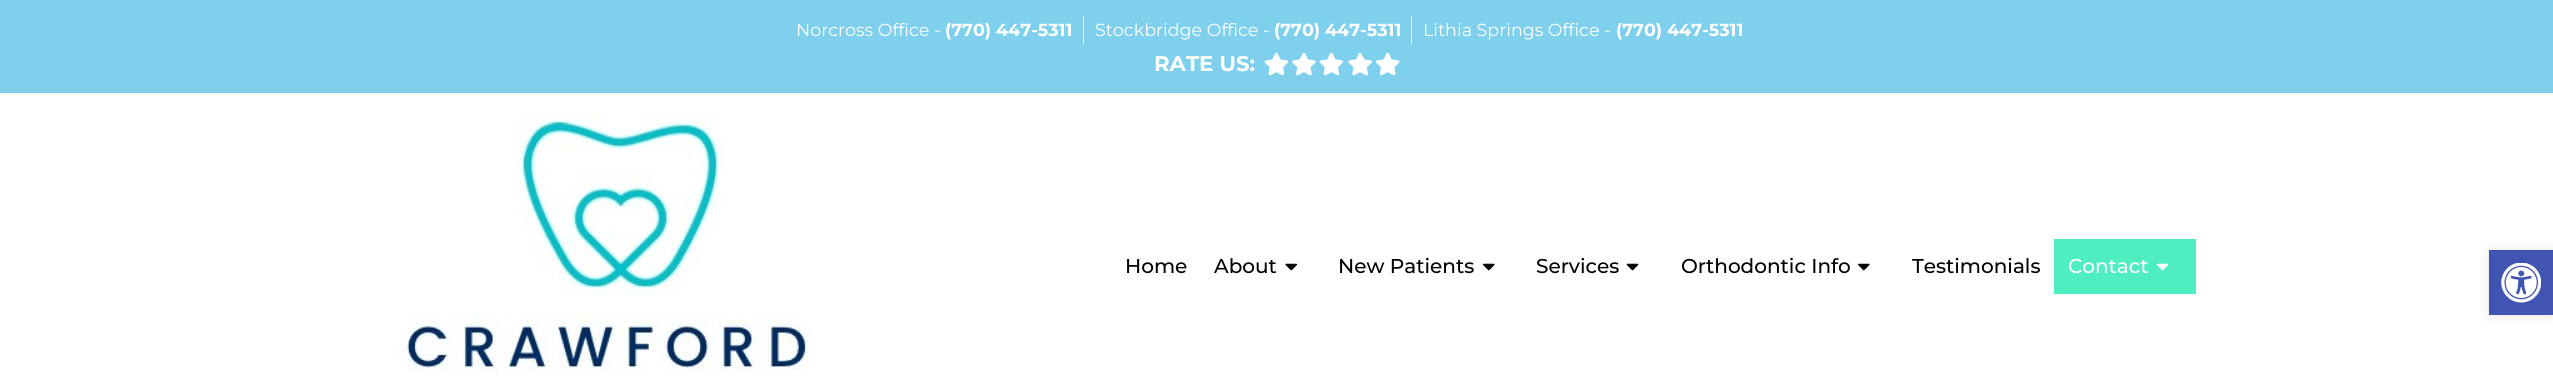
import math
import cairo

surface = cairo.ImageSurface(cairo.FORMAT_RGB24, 2553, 382)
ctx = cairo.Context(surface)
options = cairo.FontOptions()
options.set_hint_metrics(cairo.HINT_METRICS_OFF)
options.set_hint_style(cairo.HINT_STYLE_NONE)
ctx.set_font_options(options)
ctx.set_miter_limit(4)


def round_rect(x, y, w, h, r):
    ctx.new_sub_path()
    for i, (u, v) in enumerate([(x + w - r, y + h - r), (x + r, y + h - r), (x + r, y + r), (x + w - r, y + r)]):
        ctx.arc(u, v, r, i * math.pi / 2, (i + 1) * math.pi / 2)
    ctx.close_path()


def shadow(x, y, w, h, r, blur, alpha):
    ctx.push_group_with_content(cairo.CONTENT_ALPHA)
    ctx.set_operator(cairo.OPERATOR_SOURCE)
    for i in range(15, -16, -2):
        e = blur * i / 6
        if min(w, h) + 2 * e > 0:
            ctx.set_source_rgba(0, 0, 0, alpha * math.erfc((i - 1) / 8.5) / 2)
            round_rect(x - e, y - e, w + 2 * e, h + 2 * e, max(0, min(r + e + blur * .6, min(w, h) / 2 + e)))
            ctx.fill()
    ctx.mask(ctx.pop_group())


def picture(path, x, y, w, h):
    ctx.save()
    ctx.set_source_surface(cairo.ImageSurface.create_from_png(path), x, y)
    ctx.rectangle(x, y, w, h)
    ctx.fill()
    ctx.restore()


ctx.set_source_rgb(1, 1, 1)
ctx.paint()
ctx.set_source_rgb(0.498, 0.816, 0.929)
ctx.rectangle(0, 0, 2553, 93)
ctx.fill()
ctx.set_source_rgb(1, 1, 1)
ctx.rectangle(1083, 16, 1, 28)
ctx.fill()
ctx.select_font_face("Montserrat")
ctx.set_font_size(17.5)
ctx.move_to(796, 36)
ctx.show_text("Norcross Office -")
ctx.select_font_face("Montserrat", cairo.FONT_SLANT_NORMAL, cairo.FONT_WEIGHT_BOLD)
ctx.move_to(945, 36)
ctx.show_text("(770) 447-5311")
ctx.rectangle(1411, 16, 1, 28)
ctx.fill()
ctx.select_font_face("Montserrat")
ctx.move_to(1095, 36)
ctx.show_text("Stockbridge Office -")
ctx.select_font_face("Montserrat", cairo.FONT_SLANT_NORMAL, cairo.FONT_WEIGHT_BOLD)
ctx.move_to(1274, 36)
ctx.show_text("(770) 447-5311")
ctx.select_font_face("Montserrat")
ctx.move_to(1423, 36)
ctx.show_text("Lithia Springs Office -")
ctx.select_font_face("Montserrat", cairo.FONT_SLANT_NORMAL, cairo.FONT_WEIGHT_BOLD)
ctx.move_to(1616, 36)
ctx.show_text("(770) 447-5311")
ctx.set_font_size(21.25)
ctx.move_to(1154, 71)
ctx.show_text("RATE US:")
picture("img1.png", 1264, 52, 25, 24)
picture("img2.png", 1292, 52, 24, 24)
picture("img1.png", 1319, 52, 25, 24)
picture("img3.png", 1348, 52, 24, 24)
picture("img4.png", 1375, 52, 25, 24)
picture("img5.png", 398, 111, 413, 261)
ctx.select_font_face("Montserrat Medium")
ctx.set_font_size(20)
ctx.set_source_rgb(0, 0, 0)
ctx.move_to(1125, 273)
ctx.show_text("Home")
ctx.move_to(1214, 273)
ctx.show_text("About")
picture("img6.png", 1285, 263, 12, 8)
ctx.move_to(1338, 273)
ctx.show_text("New Patients")
picture("img7.png", 1483, 263, 12, 8)
ctx.move_to(1536, 273)
ctx.show_text("Services")
picture("img8.png", 1626, 263, 13, 8)
ctx.move_to(1681, 273)
ctx.show_text("Orthodontic Info")
picture("img7.png", 1858, 263, 12, 8)
ctx.move_to(1912, 273)
ctx.show_text("Testimonials")
ctx.set_source_rgb(0.306, 0.929, 0.761)
ctx.rectangle(2054, 239, 142, 55)
ctx.fill()
ctx.set_source_rgb(1, 1, 1)
ctx.move_to(2068, 273)
ctx.show_text("Contact")
picture("img9.png", 2156, 263, 13, 8)
ctx.set_source_rgb(0, 0, 0)
shadow(2489, 250, 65, 65, 0, 6, 0.1)
ctx.set_source_rgb(0.251, 0.329, 0.698)
ctx.rectangle(2489, 250, 64, 65)
ctx.fill()
picture("img10.png", 2501, 263, 40, 40)
surface.write_to_png("page.png")
